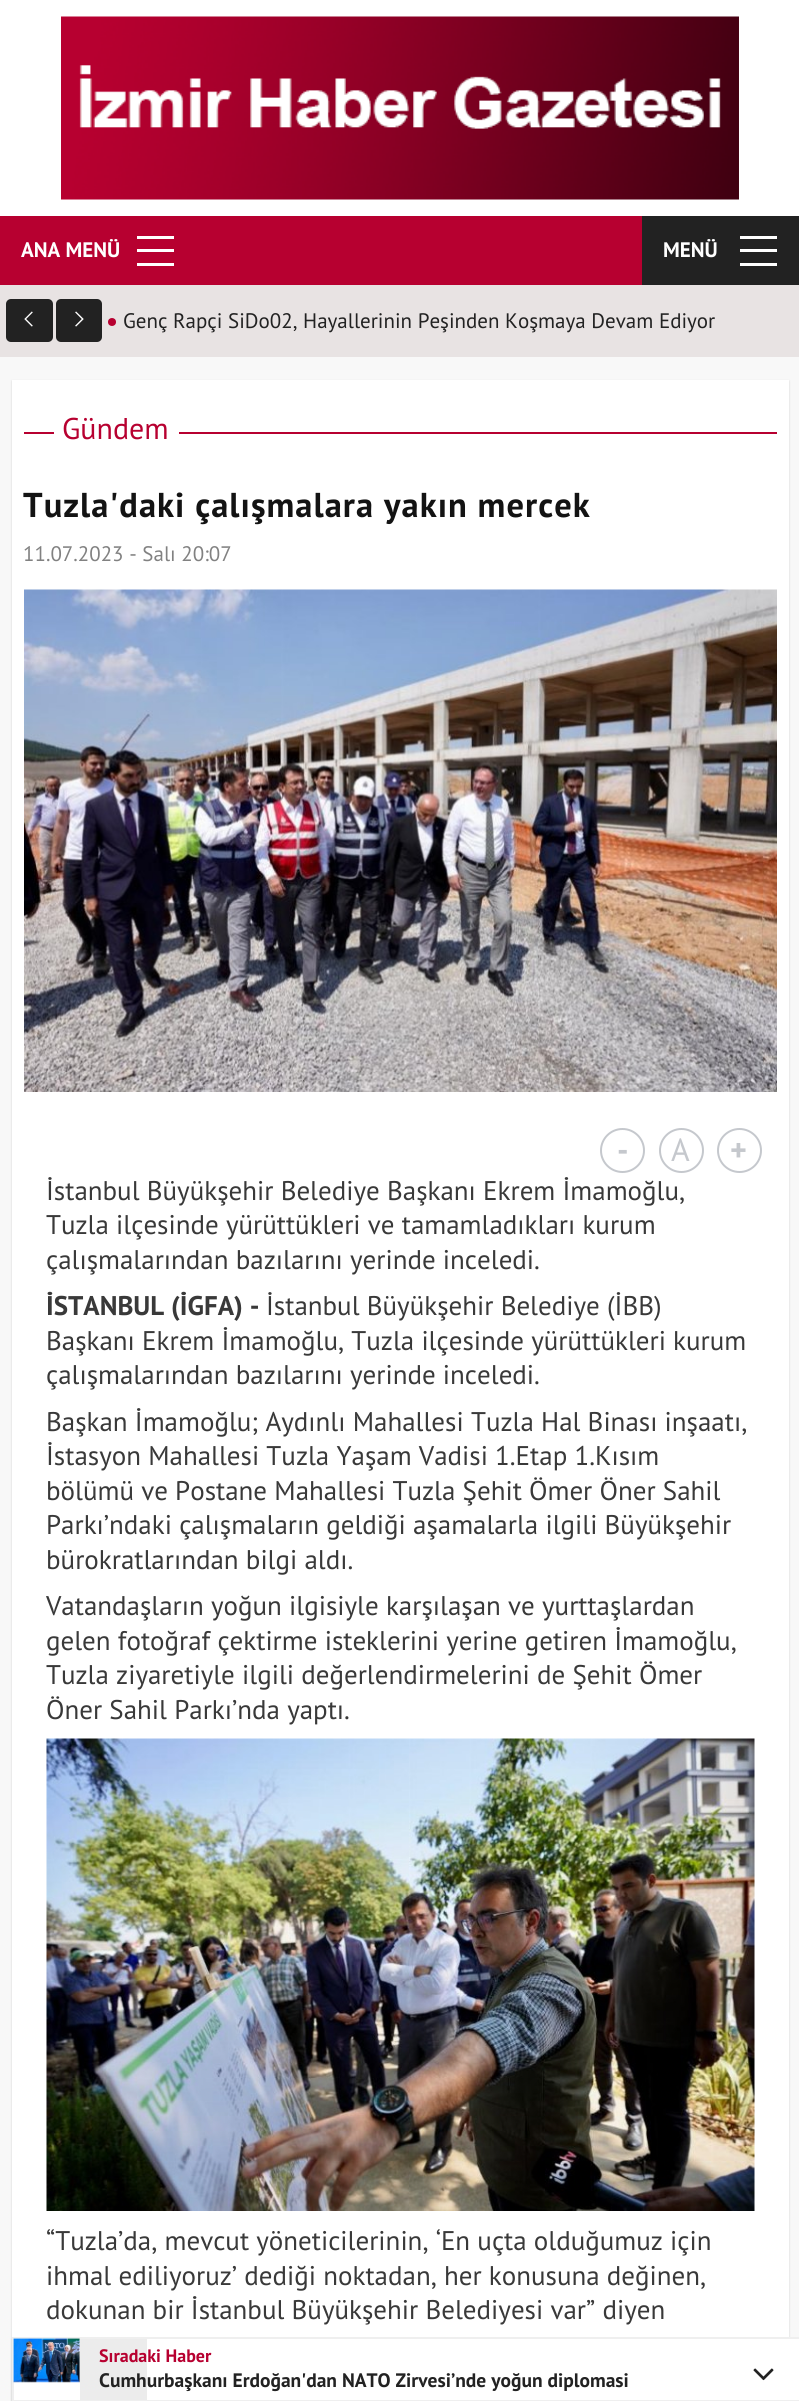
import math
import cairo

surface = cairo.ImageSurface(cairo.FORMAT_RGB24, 799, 2401)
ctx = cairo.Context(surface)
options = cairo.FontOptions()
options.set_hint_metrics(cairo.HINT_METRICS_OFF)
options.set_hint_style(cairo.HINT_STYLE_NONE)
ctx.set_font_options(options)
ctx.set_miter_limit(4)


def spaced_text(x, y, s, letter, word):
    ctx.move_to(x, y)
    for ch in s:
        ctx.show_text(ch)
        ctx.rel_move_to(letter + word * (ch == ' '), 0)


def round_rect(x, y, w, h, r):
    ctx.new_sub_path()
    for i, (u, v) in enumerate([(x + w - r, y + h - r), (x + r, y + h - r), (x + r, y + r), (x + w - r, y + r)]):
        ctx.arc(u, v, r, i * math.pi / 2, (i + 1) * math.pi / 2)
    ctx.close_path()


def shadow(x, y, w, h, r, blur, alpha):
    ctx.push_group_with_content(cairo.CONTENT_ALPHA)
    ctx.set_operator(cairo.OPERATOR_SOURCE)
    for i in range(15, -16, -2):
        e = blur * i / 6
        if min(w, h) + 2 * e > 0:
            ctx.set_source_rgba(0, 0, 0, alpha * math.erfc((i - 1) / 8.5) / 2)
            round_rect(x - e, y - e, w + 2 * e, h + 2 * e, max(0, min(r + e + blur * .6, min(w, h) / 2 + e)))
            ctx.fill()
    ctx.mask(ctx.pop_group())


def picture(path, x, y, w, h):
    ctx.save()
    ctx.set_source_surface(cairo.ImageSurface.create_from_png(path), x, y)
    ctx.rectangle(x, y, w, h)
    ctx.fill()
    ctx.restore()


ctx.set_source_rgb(0.969, 0.969, 0.969)
ctx.paint()
ctx.set_source_rgb(1, 1, 1)
ctx.rectangle(0, 0, 799, 216)
ctx.fill()
picture("img1.png", 61, 16, 678, 184)
ctx.set_source_rgb(0.718, 0, 0.188)
ctx.rectangle(0, 216, 642, 69)
ctx.fill()
ctx.set_source_rgb(1, 1, 1)
ctx.rectangle(137, 236, 37, 3)
ctx.fill()
ctx.select_font_face("PT Sans", cairo.FONT_SLANT_NORMAL, cairo.FONT_WEIGHT_BOLD)
ctx.set_font_size(21)
ctx.move_to(21, 257)
ctx.show_text("ANA MENÜ")
ctx.rectangle(137, 249, 37, 3)
ctx.fill()
ctx.rectangle(137, 263, 37, 3)
ctx.fill()
ctx.set_source_rgb(0.133, 0.133, 0.133)
ctx.rectangle(642, 216, 157, 69)
ctx.fill()
ctx.set_source_rgb(1, 1, 1)
ctx.rectangle(740, 236, 37, 3)
ctx.fill()
ctx.move_to(663, 257)
ctx.show_text("MENÜ")
ctx.rectangle(740, 249, 37, 3)
ctx.fill()
ctx.rectangle(740, 263, 37, 3)
ctx.fill()
ctx.set_source_rgb(0.91, 0.89, 0.89)
ctx.rectangle(0, 285, 799, 72)
ctx.fill()
ctx.set_source_rgb(0.133, 0.133, 0.133)
round_rect(6, 299, 47, 43, 5)
ctx.fill()
picture("img2.png", 24, 311, 9, 16)
round_rect(56, 299, 46, 43, 5)
ctx.fill()
picture("img3.png", 75, 311, 9, 16)
ctx.set_source_rgb(0.718, 0, 0.188)
ctx.arc(112, 322, 4, 0, 2 * math.pi)
ctx.fill()
ctx.select_font_face("PT Sans")
ctx.set_source_rgb(0.133, 0.133, 0.133)
ctx.move_to(123, 328)
ctx.show_text("Genç Rapçi SiDo02, Hayallerinin Peşinden Koşmaya Devam Ediyor")
ctx.set_source_rgb(0.827, 0.827, 0.827)
shadow(12, 381, 777, 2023, 0, 1, 1)
ctx.set_source_rgb(1, 1, 1)
ctx.rectangle(12, 380, 777, 1957)
ctx.fill()
ctx.set_source_rgb(0.718, 0, 0.188)
ctx.rectangle(24, 432, 753, 2)
ctx.fill()
ctx.set_source_rgb(1, 1, 1)
ctx.rectangle(54, 432, 125, 2)
ctx.fill()
ctx.set_font_size(30)
ctx.set_source_rgb(0.718, 0, 0.188)
ctx.move_to(62, 439)
ctx.show_text("Gündem")
ctx.select_font_face("PT Sans", cairo.FONT_SLANT_NORMAL, cairo.FONT_WEIGHT_BOLD)
ctx.set_font_size(34.5)
ctx.set_source_rgb(0.078, 0.078, 0.078)
spaced_text(23, 517, "Tuzla'daki çalışmalara yakın mercek", 1.05, 0)
ctx.select_font_face("PT Sans")
ctx.set_font_size(21)
ctx.set_source_rgb(0.506, 0.506, 0.506)
ctx.move_to(23, 561)
ctx.show_text("11.07.2023 - Salı 20:07")
picture("img4.png", 24, 589, 753, 503)
ctx.arc(622.5, 1150.5, 21.5, 0, 2 * math.pi)
ctx.set_source_rgb(0.773, 0.784, 0.804)
ctx.stroke()
ctx.select_font_face("PT Sans", cairo.FONT_SLANT_NORMAL, cairo.FONT_WEIGHT_BOLD)
ctx.set_font_size(32)
ctx.move_to(617, 1161)
ctx.show_text("-")
ctx.new_path()
ctx.arc(681.5, 1150.5, 21.5, 0, 2 * math.pi)
ctx.stroke()
ctx.select_font_face("PT Sans")
ctx.move_to(671, 1161)
ctx.show_text("A")
ctx.new_path()
ctx.arc(739.5, 1150.5, 21.5, 0, 2 * math.pi)
ctx.stroke()
ctx.select_font_face("PT Sans", cairo.FONT_SLANT_NORMAL, cairo.FONT_WEIGHT_BOLD)
ctx.move_to(730, 1161)
ctx.show_text("+")
ctx.select_font_face("PT Sans")
ctx.set_font_size(27)
ctx.set_source_rgb(0.224, 0.224, 0.224)
ctx.move_to(46, 1200)
ctx.show_text("İstanbul Büyükşehir Belediye Başkanı Ekrem İmamoğlu,")
ctx.move_to(46, 1234)
ctx.show_text("Tuzla ilçesinde yürüttükleri ve tamamladıkları kurum")
ctx.move_to(46, 1269)
ctx.show_text("çalışmalarından bazılarını yerinde inceledi.")
ctx.select_font_face("PT Sans", cairo.FONT_SLANT_NORMAL, cairo.FONT_WEIGHT_BOLD)
ctx.move_to(46, 1315)
ctx.show_text("İSTANBUL (İGFA) -")
ctx.select_font_face("PT Sans")
ctx.move_to(266, 1315)
ctx.show_text("İstanbul Büyükşehir Belediye (İBB)")
ctx.move_to(46, 1350)
ctx.show_text("Başkanı Ekrem İmamoğlu, Tuzla ilçesinde yürüttükleri kurum")
ctx.move_to(46, 1384)
ctx.show_text("çalışmalarından bazılarını yerinde inceledi.")
ctx.move_to(46, 1431)
ctx.show_text("Başkan İmamoğlu; Aydınlı Mahallesi Tuzla Hal Binası inşaatı,")
ctx.move_to(46, 1465)
ctx.show_text("İstasyon Mahallesi Tuzla Yaşam Vadisi 1.Etap 1.Kısım")
ctx.move_to(46, 1500)
ctx.show_text("bölümü ve Postane Mahallesi Tuzla Şehit Ömer Öner Sahil")
ctx.move_to(46, 1534)
ctx.show_text("Parkı’ndaki çalışmaların geldiği aşamalarla ilgili Büyükşehir")
ctx.move_to(46, 1569)
ctx.show_text("bürokratlarından bilgi aldı.")
ctx.move_to(46, 1615)
ctx.show_text("Vatandaşların yoğun ilgisiyle karşılaşan ve yurttaşlardan")
ctx.move_to(46, 1650)
ctx.show_text("gelen fotoğraf çektirme isteklerini yerine getiren İmamoğlu,")
ctx.move_to(46, 1684)
ctx.show_text("Tuzla ziyaretiyle ilgili değerlendirmelerini de Şehit Ömer")
ctx.move_to(46, 1719)
ctx.show_text("Öner Sahil Parkı’nda yaptı.")
picture("img5.png", 46, 1738, 709, 473)
ctx.move_to(46, 2250)
ctx.show_text("“Tuzla’da, mevcut yöneticilerinin, ‘En uçta olduğumuz için")
ctx.move_to(46, 2285)
ctx.show_text("ihmal ediliyoruz’ dediği noktadan, her konusuna değinen,")
ctx.move_to(46, 2319)
ctx.show_text("dokunan bir İstanbul Büyükşehir Belediyesi var” diyen")
ctx.set_source_rgb(0.827, 0.827, 0.827)
shadow(12, 2339, 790, 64, 0, 1, 1)
ctx.set_source_rgb(1, 1, 1)
ctx.rectangle(13, 2338, 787, 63)
ctx.fill_preserve()
ctx.set_source_rgb(0.937, 0.937, 0.937)
ctx.stroke()
picture("img6.png", 13, 2338, 67, 45)
ctx.set_source_rgb(0.922, 0.922, 0.922)
ctx.rectangle(80, 2339, 67, 61)
ctx.fill()
ctx.select_font_face("PT Sans", cairo.FONT_SLANT_NORMAL, cairo.FONT_WEIGHT_BOLD)
ctx.set_font_size(18)
ctx.set_source_rgb(0.718, 0, 0.188)
ctx.move_to(99, 2362)
ctx.show_text("Sıradaki Haber")
ctx.set_font_size(19.5)
ctx.set_source_rgb(0.133, 0.133, 0.133)
ctx.move_to(99, 2387)
ctx.show_text("Cumhurbaşkanı Erdoğan'dan NATO Zirvesi’nde yoğun diplomasi")
picture("img7.png", 753, 2368, 21, 13)
surface.write_to_png("page.png")
